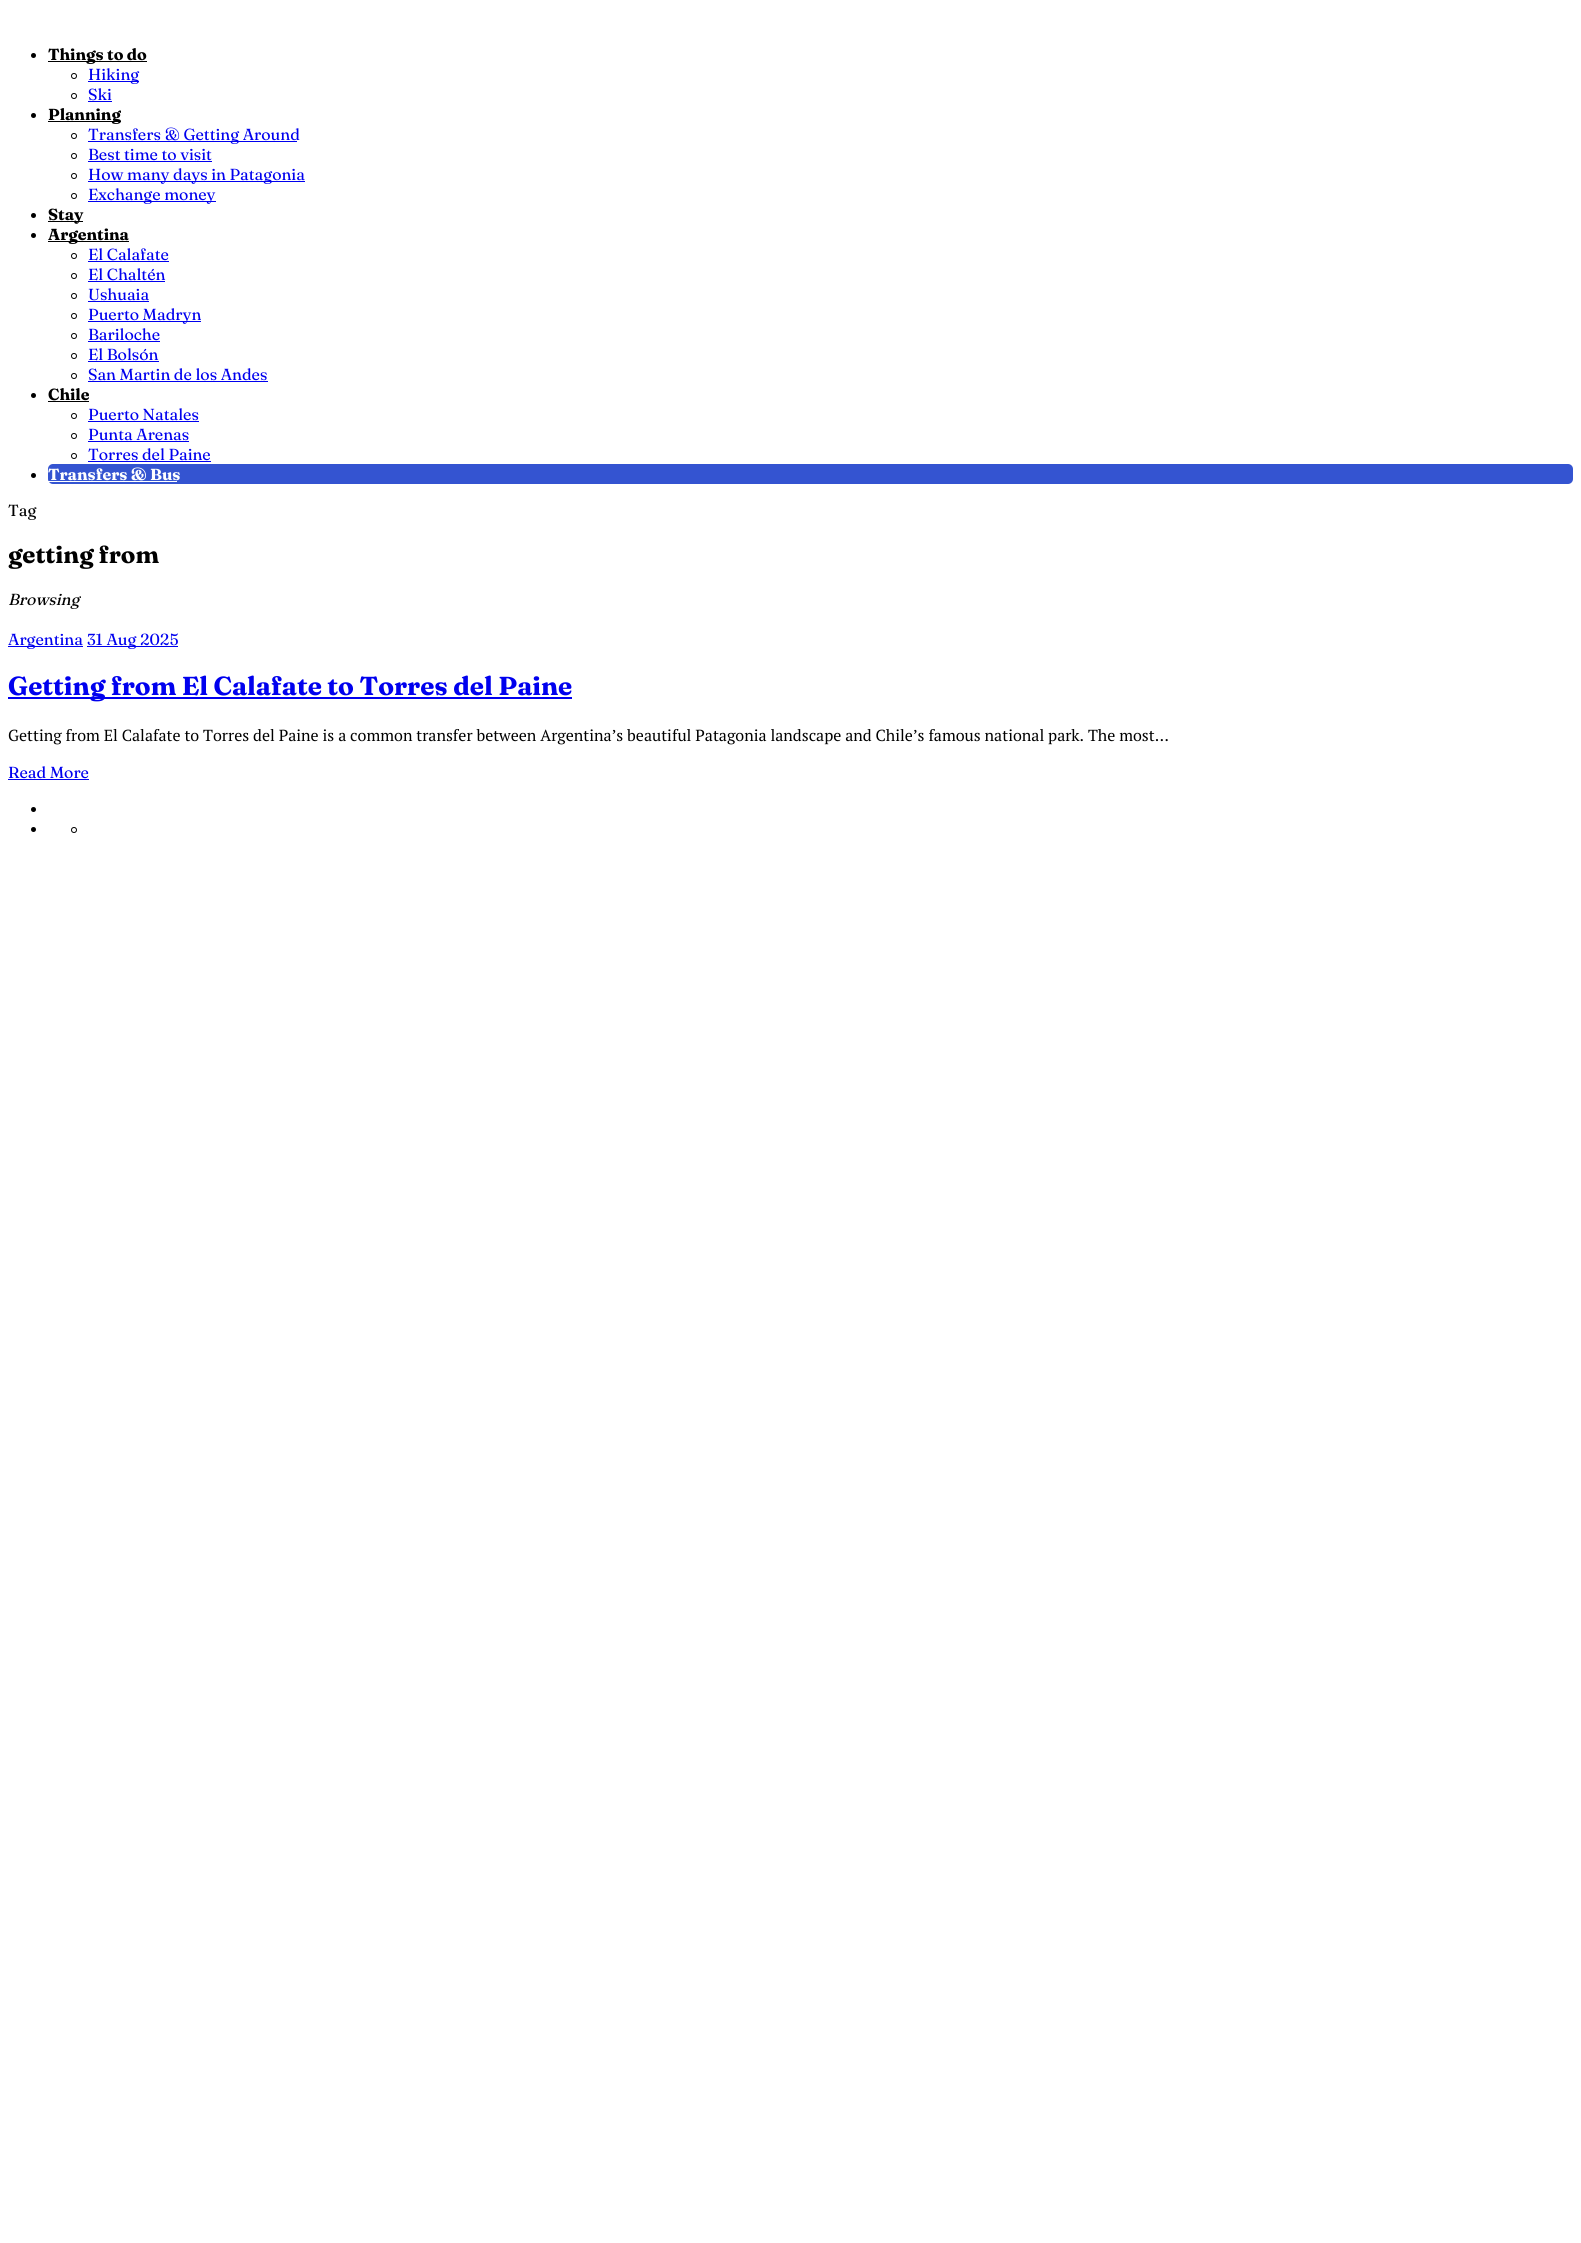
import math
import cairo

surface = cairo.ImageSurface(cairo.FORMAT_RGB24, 1581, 2243)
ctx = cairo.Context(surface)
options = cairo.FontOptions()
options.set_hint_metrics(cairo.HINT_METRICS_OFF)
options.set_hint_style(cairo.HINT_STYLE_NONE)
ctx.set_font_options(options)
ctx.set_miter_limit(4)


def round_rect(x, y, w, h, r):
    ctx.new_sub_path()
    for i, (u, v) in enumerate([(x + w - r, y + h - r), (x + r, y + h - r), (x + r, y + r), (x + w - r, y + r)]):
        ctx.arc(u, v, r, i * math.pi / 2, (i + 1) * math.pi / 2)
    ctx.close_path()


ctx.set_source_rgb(1, 1, 1)
ctx.paint()
ctx.set_source_rgb(0, 0, 0)
ctx.arc(33.5, 55.5, 2.5, 0, 2 * math.pi)
ctx.fill()
ctx.rectangle(48, 61, 99, 1)
ctx.fill()
ctx.select_font_face("Fraunces", cairo.FONT_SLANT_NORMAL, cairo.FONT_WEIGHT_BOLD)
ctx.set_font_size(16)
ctx.move_to(48, 60)
ctx.show_text("Things to do")
ctx.new_path()
ctx.arc(74, 76, 2.5, 0, 2 * math.pi)
ctx.set_line_width(1)
ctx.stroke()
ctx.set_source_rgb(0, 0, 0.933)
ctx.rectangle(88, 81, 51, 1)
ctx.fill()
ctx.select_font_face("Fraunces")
ctx.move_to(88, 80)
ctx.show_text("Hiking")
ctx.new_path()
ctx.arc(74, 96, 2.5, 0, 2 * math.pi)
ctx.set_source_rgb(0, 0, 0)
ctx.stroke()
ctx.set_source_rgb(0, 0, 0.933)
ctx.move_to(88, 100)
ctx.show_text("Ski")
ctx.rectangle(88, 101, 24, 1)
ctx.fill()
ctx.set_source_rgb(0, 0, 0)
ctx.arc(33.5, 115.5, 2.5, 0, 2 * math.pi)
ctx.fill()
ctx.rectangle(48, 121, 73, 1)
ctx.fill()
ctx.select_font_face("Fraunces", cairo.FONT_SLANT_NORMAL, cairo.FONT_WEIGHT_BOLD)
ctx.move_to(48, 120)
ctx.show_text("Planning")
ctx.new_path()
ctx.arc(74, 136, 2.5, 0, 2 * math.pi)
ctx.stroke()
ctx.set_source_rgb(0, 0, 0.933)
ctx.rectangle(88, 141, 209, 1)
ctx.fill()
ctx.select_font_face("Fraunces")
ctx.move_to(88, 140)
ctx.show_text("Transfers & Getting Around")
ctx.new_path()
ctx.arc(74, 156, 2.5, 0, 2 * math.pi)
ctx.set_source_rgb(0, 0, 0)
ctx.stroke()
ctx.set_source_rgb(0, 0, 0.933)
ctx.move_to(88, 160)
ctx.show_text("Best time to visit")
ctx.rectangle(88, 161, 124, 1)
ctx.fill()
ctx.arc(74, 176, 2.5, 0, 2 * math.pi)
ctx.set_source_rgb(0, 0, 0)
ctx.stroke()
ctx.set_source_rgb(0, 0, 0.933)
ctx.rectangle(88, 181, 217, 1)
ctx.fill()
ctx.move_to(88, 180)
ctx.show_text("How many days in Patagonia")
ctx.new_path()
ctx.arc(74, 196, 2.5, 0, 2 * math.pi)
ctx.set_source_rgb(0, 0, 0)
ctx.stroke()
ctx.set_source_rgb(0, 0, 0.933)
ctx.rectangle(88, 201, 128, 1)
ctx.fill()
ctx.move_to(88, 200)
ctx.show_text("Exchange money")
ctx.set_source_rgb(0, 0, 0)
ctx.new_path()
ctx.arc(33.5, 215.5, 2.5, 0, 2 * math.pi)
ctx.fill()
ctx.rectangle(48, 221, 35, 1)
ctx.fill()
ctx.select_font_face("Fraunces", cairo.FONT_SLANT_NORMAL, cairo.FONT_WEIGHT_BOLD)
ctx.move_to(48, 220)
ctx.show_text("Stay")
ctx.new_path()
ctx.arc(33.5, 235.5, 2.5, 0, 2 * math.pi)
ctx.fill()
ctx.rectangle(48, 241, 81, 1)
ctx.fill()
ctx.move_to(48, 240)
ctx.show_text("Argentina")
ctx.new_path()
ctx.arc(74, 256, 2.5, 0, 2 * math.pi)
ctx.stroke()
ctx.select_font_face("Fraunces")
ctx.set_source_rgb(0, 0, 0.933)
ctx.move_to(88, 260)
ctx.show_text("El Calafate")
ctx.rectangle(88, 261, 81, 1)
ctx.fill()
ctx.arc(74, 276, 2.5, 0, 2 * math.pi)
ctx.set_source_rgb(0, 0, 0)
ctx.stroke()
ctx.set_source_rgb(0, 0, 0.933)
ctx.move_to(88, 280)
ctx.show_text("El Chaltén")
ctx.rectangle(88, 281, 77, 1)
ctx.fill()
ctx.arc(74, 296, 2.5, 0, 2 * math.pi)
ctx.set_source_rgb(0, 0, 0)
ctx.stroke()
ctx.set_source_rgb(0, 0, 0.933)
ctx.move_to(88, 300)
ctx.show_text("Ushuaia")
ctx.rectangle(88, 301, 61, 1)
ctx.fill()
ctx.arc(74, 316, 2.5, 0, 2 * math.pi)
ctx.set_source_rgb(0, 0, 0)
ctx.stroke()
ctx.set_source_rgb(0, 0, 0.933)
ctx.rectangle(88, 321, 113, 1)
ctx.fill()
ctx.move_to(88, 320)
ctx.show_text("Puerto Madryn")
ctx.new_path()
ctx.arc(74, 336, 2.5, 0, 2 * math.pi)
ctx.set_source_rgb(0, 0, 0)
ctx.stroke()
ctx.set_source_rgb(0, 0, 0.933)
ctx.move_to(88, 340)
ctx.show_text("Bariloche")
ctx.rectangle(88, 341, 72, 1)
ctx.fill()
ctx.arc(74, 356, 2.5, 0, 2 * math.pi)
ctx.set_source_rgb(0, 0, 0)
ctx.stroke()
ctx.set_source_rgb(0, 0, 0.933)
ctx.move_to(88, 360)
ctx.show_text("El Bolsón")
ctx.rectangle(88, 361, 71, 1)
ctx.fill()
ctx.arc(74, 376, 2.5, 0, 2 * math.pi)
ctx.set_source_rgb(0, 0, 0)
ctx.stroke()
ctx.set_source_rgb(0, 0, 0.933)
ctx.move_to(88, 380)
ctx.show_text("San Martin de los Andes")
ctx.rectangle(88, 381, 180, 1)
ctx.fill()
ctx.set_source_rgb(0, 0, 0)
ctx.arc(33.5, 395.5, 2.5, 0, 2 * math.pi)
ctx.fill()
ctx.select_font_face("Fraunces", cairo.FONT_SLANT_NORMAL, cairo.FONT_WEIGHT_BOLD)
ctx.move_to(48, 400)
ctx.show_text("Chile")
ctx.rectangle(48, 401, 41, 1)
ctx.fill()
ctx.arc(74, 416, 2.5, 0, 2 * math.pi)
ctx.stroke()
ctx.select_font_face("Fraunces")
ctx.set_source_rgb(0, 0, 0.933)
ctx.move_to(88, 420)
ctx.show_text("Puerto Natales")
ctx.rectangle(88, 421, 111, 1)
ctx.fill()
ctx.arc(74, 436, 2.5, 0, 2 * math.pi)
ctx.set_source_rgb(0, 0, 0)
ctx.stroke()
ctx.set_source_rgb(0, 0, 0.933)
ctx.move_to(88, 440)
ctx.show_text("Punta Arenas")
ctx.rectangle(88, 441, 101, 1)
ctx.fill()
ctx.arc(74, 456, 2.5, 0, 2 * math.pi)
ctx.set_source_rgb(0, 0, 0)
ctx.stroke()
ctx.set_source_rgb(0, 0, 0.933)
ctx.move_to(88, 460)
ctx.show_text("Torres del Paine")
ctx.rectangle(88, 461, 123, 1)
ctx.fill()
ctx.set_source_rgb(0.204, 0.329, 0.82)
round_rect(48, 464, 1525, 20, 5)
ctx.fill()
ctx.set_source_rgb(0, 0, 0)
ctx.arc(33.5, 475.5, 2.5, 0, 2 * math.pi)
ctx.fill()
ctx.select_font_face("Fraunces", cairo.FONT_SLANT_NORMAL, cairo.FONT_WEIGHT_BOLD)
ctx.set_source_rgb(1, 1, 1)
ctx.move_to(48, 480)
ctx.show_text("Transfers & Bus")
ctx.rectangle(48, 481, 129, 1)
ctx.fill()
ctx.select_font_face("Fraunces")
ctx.set_source_rgb(0, 0, 0)
ctx.move_to(8, 516)
ctx.show_text("Tag")
ctx.select_font_face("Fraunces", cairo.FONT_SLANT_NORMAL, cairo.FONT_WEIGHT_BOLD)
ctx.set_font_size(24)
ctx.move_to(8, 563)
ctx.show_text("getting from")
ctx.select_font_face("Fraunces", cairo.FONT_SLANT_ITALIC)
ctx.set_font_size(16)
ctx.move_to(8, 605)
ctx.show_text("Browsing")
ctx.set_source_rgb(0, 0, 0.933)
ctx.rectangle(8, 646, 75, 1)
ctx.fill()
ctx.select_font_face("Fraunces")
ctx.move_to(8, 645)
ctx.show_text("Argentina")
ctx.rectangle(87, 646, 91, 1)
ctx.fill()
ctx.move_to(87, 645)
ctx.show_text("31 Aug 2025")
ctx.rectangle(8, 697, 564, 2)
ctx.fill()
ctx.select_font_face("Fraunces", cairo.FONT_SLANT_NORMAL, cairo.FONT_WEIGHT_BOLD)
ctx.set_font_size(26)
ctx.move_to(8, 695)
ctx.show_text("Getting from El Calafate to Torres del Paine")
ctx.select_font_face("PT Serif")
ctx.set_font_size(16)
ctx.set_source_rgb(0, 0, 0)
ctx.move_to(8, 741)
ctx.show_text("Getting from El Calafate to Torres del Paine is a common transfer between Argentina’s beautiful Patagonia landscape and Chile’s famous national park. The most…")
ctx.select_font_face("Fraunces")
ctx.set_source_rgb(0, 0, 0.933)
ctx.move_to(8, 778)
ctx.show_text("Read More")
ctx.rectangle(8, 779, 81, 1)
ctx.fill()
ctx.set_source_rgb(0, 0, 0)
ctx.arc(33.5, 809.5, 2.5, 0, 2 * math.pi)
ctx.fill()
ctx.arc(33.5, 829.5, 2.5, 0, 2 * math.pi)
ctx.fill()
ctx.arc(74, 830, 2.5, 0, 2 * math.pi)
ctx.stroke()
surface.write_to_png("page.png")
